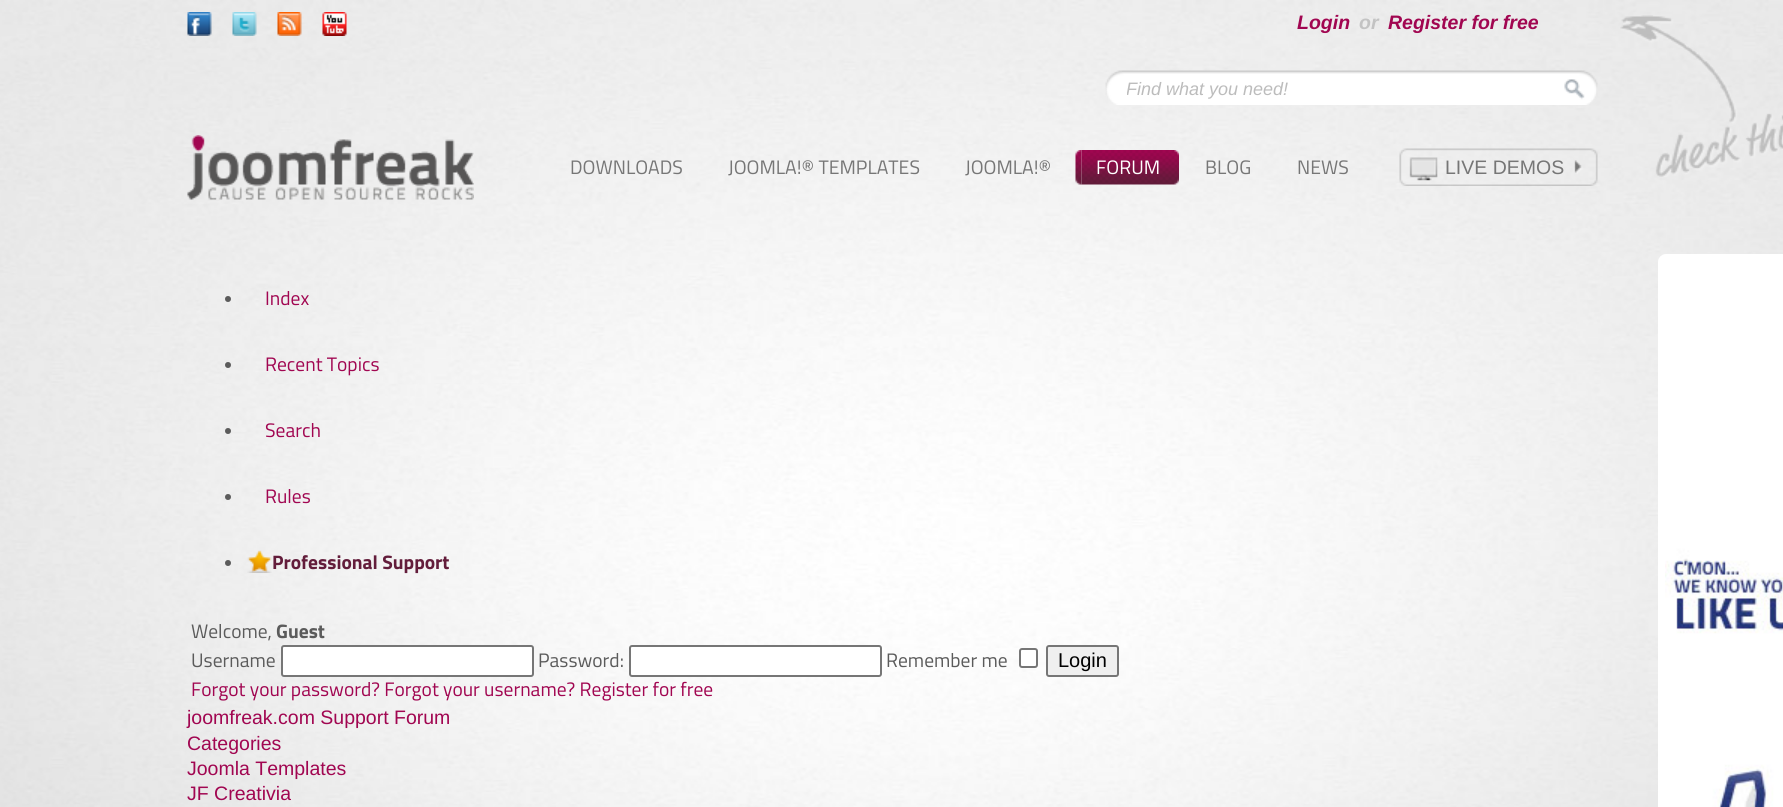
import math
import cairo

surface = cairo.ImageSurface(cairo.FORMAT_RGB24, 1783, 807)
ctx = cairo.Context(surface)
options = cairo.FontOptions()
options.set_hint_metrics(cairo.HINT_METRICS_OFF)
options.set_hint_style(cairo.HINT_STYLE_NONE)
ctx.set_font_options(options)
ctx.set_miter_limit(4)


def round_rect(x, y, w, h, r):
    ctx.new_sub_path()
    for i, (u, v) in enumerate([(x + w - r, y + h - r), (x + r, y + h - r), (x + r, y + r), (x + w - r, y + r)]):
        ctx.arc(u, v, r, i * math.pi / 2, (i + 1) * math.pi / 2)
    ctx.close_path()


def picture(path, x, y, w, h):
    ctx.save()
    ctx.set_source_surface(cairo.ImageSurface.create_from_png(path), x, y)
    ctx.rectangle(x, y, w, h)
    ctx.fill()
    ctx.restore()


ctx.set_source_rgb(1, 1, 1)
ctx.paint()
picture("img1.png", 0, 0, 1783, 807)
picture("img2.png", 187, 12, 25, 24)
picture("img3.png", 232, 12, 25, 24)
picture("img4.png", 277, 12, 25, 24)
picture("img5.png", 322, 12, 25, 24)
ctx.select_font_face("Liberation Sans", cairo.FONT_SLANT_ITALIC, cairo.FONT_WEIGHT_BOLD)
ctx.set_font_size(19.5)
ctx.set_source_rgb(0.631, 0.024, 0.318)
ctx.move_to(1297, 29)
ctx.show_text("Login")
ctx.set_source_rgb(0.765, 0.765, 0.765)
ctx.move_to(1359, 29)
ctx.show_text("or")
ctx.set_source_rgb(0.631, 0.024, 0.318)
ctx.move_to(1388, 29)
ctx.show_text("Register for free")
picture("img6.png", 1105, 70, 493, 35)
ctx.save()
ctx.rectangle(1127, 78, 435, 21)
ctx.clip()
ctx.select_font_face("Liberation Sans", cairo.FONT_SLANT_ITALIC)
ctx.set_font_size(18)
ctx.set_source_rgb(0.737, 0.737, 0.737)
ctx.move_to(1126, 95)
ctx.show_text("Find what you need!")
ctx.restore()
picture("img7.png", 1620, 15, 163, 162)
picture("img8.png", 187, 135, 287, 65)
ctx.select_font_face("Titillium Web")
ctx.set_source_rgb(0.463, 0.463, 0.463)
ctx.move_to(570, 174)
ctx.show_text("DOWNLOADS")
ctx.move_to(728, 174)
ctx.show_text("JOOMLA!® TEMPLATES")
ctx.move_to(965, 174)
ctx.show_text("JOOMLA!®")
picture("img9.png", 1075, 150, 7, 35)
picture("img10.png", 1081, 150, 98, 35)
ctx.set_source_rgb(1, 1, 1)
ctx.move_to(1096, 174)
ctx.show_text("FORUM")
ctx.set_source_rgb(0.463, 0.463, 0.463)
ctx.move_to(1205, 174)
ctx.show_text("BLOG")
ctx.move_to(1297, 174)
ctx.show_text("NEWS")
picture("img11.png", 1572, 148, 26, 38)
picture("img12.png", 1399, 148, 173, 38)
ctx.select_font_face("Liberation Sans")
ctx.move_to(1445, 174)
ctx.show_text("LIVE DEMOS")
ctx.set_source_rgb(0.357, 0.357, 0.357)
ctx.new_path()
ctx.arc(228, 299, 3, 0, 2 * math.pi)
ctx.fill()
ctx.select_font_face("Titillium Web")
ctx.set_source_rgb(0.631, 0.024, 0.318)
ctx.move_to(265, 305)
ctx.show_text("Index")
ctx.set_source_rgb(0.357, 0.357, 0.357)
ctx.new_path()
ctx.arc(228, 365, 3, 0, 2 * math.pi)
ctx.fill()
ctx.set_source_rgb(0.631, 0.024, 0.318)
ctx.move_to(265, 371)
ctx.show_text("Recent Topics")
ctx.set_source_rgb(0.357, 0.357, 0.357)
ctx.new_path()
ctx.arc(228, 431, 3, 0, 2 * math.pi)
ctx.fill()
ctx.set_source_rgb(0.631, 0.024, 0.318)
ctx.move_to(265, 437)
ctx.show_text("Search")
ctx.set_source_rgb(0.357, 0.357, 0.357)
ctx.new_path()
ctx.arc(228, 497, 3, 0, 2 * math.pi)
ctx.fill()
ctx.set_source_rgb(0.631, 0.024, 0.318)
ctx.move_to(265, 503)
ctx.show_text("Rules")
ctx.set_source_rgb(0.357, 0.357, 0.357)
ctx.new_path()
ctx.arc(228, 563, 3, 0, 2 * math.pi)
ctx.fill()
picture("img13.png", 247, 550, 25, 23)
ctx.select_font_face("Titillium Web", cairo.FONT_SLANT_NORMAL, cairo.FONT_WEIGHT_BOLD)
ctx.set_source_rgb(0.388, 0.114, 0.231)
ctx.move_to(272, 569)
ctx.show_text("Professional Support")
ctx.select_font_face("Titillium Web")
ctx.set_source_rgb(0.357, 0.357, 0.357)
ctx.move_to(191, 638)
ctx.show_text("Welcome,")
ctx.select_font_face("Titillium Web", cairo.FONT_SLANT_NORMAL, cairo.FONT_WEIGHT_BOLD)
ctx.move_to(276, 638)
ctx.show_text("Guest")
ctx.select_font_face("Titillium Web")
ctx.move_to(191, 667)
ctx.show_text("Username")
ctx.set_source_rgb(1, 1, 1)
round_rect(282, 646, 251, 30, 2)
ctx.fill_preserve()
ctx.set_source_rgb(0.463, 0.463, 0.463)
ctx.stroke()
ctx.set_source_rgb(0.357, 0.357, 0.357)
ctx.move_to(538, 667)
ctx.show_text("Password:")
ctx.set_source_rgb(1, 1, 1)
round_rect(630, 646, 251, 30, 2)
ctx.fill_preserve()
ctx.set_source_rgb(0.463, 0.463, 0.463)
ctx.stroke()
ctx.set_source_rgb(0.357, 0.357, 0.357)
ctx.move_to(886, 667)
ctx.show_text("Remember me")
ctx.set_source_rgb(1, 1, 1)
round_rect(1020, 649, 17, 18, 2)
ctx.fill_preserve()
ctx.set_source_rgb(0.463, 0.463, 0.463)
ctx.stroke()
ctx.set_source_rgb(0.937, 0.937, 0.937)
round_rect(1047, 646, 71, 30, 2)
ctx.fill_preserve()
ctx.set_source_rgb(0.463, 0.463, 0.463)
ctx.stroke()
ctx.select_font_face("Liberation Sans")
ctx.set_font_size(20)
ctx.set_source_rgb(0, 0, 0)
ctx.move_to(1058, 667)
ctx.show_text("Login")
ctx.select_font_face("Titillium Web")
ctx.set_font_size(19.5)
ctx.set_source_rgb(0.631, 0.024, 0.318)
ctx.move_to(191, 696)
ctx.show_text("Forgot your password? Forgot your username? Register for free")
ctx.select_font_face("Liberation Sans")
ctx.move_to(187, 724)
ctx.show_text("joomfreak.com Support Forum")
ctx.move_to(187, 750)
ctx.show_text("Categories")
ctx.move_to(187, 775)
ctx.show_text("Joomla Templates")
ctx.move_to(187, 800)
ctx.show_text("JF Creativia")
round_rect(1662, 258, 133, 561, 4)
ctx.set_source_rgb(1, 1, 1)
ctx.set_line_width(8)
ctx.stroke()
picture("img14.png", 1665, 262, 118, 545)
surface.write_to_png("page.png")
